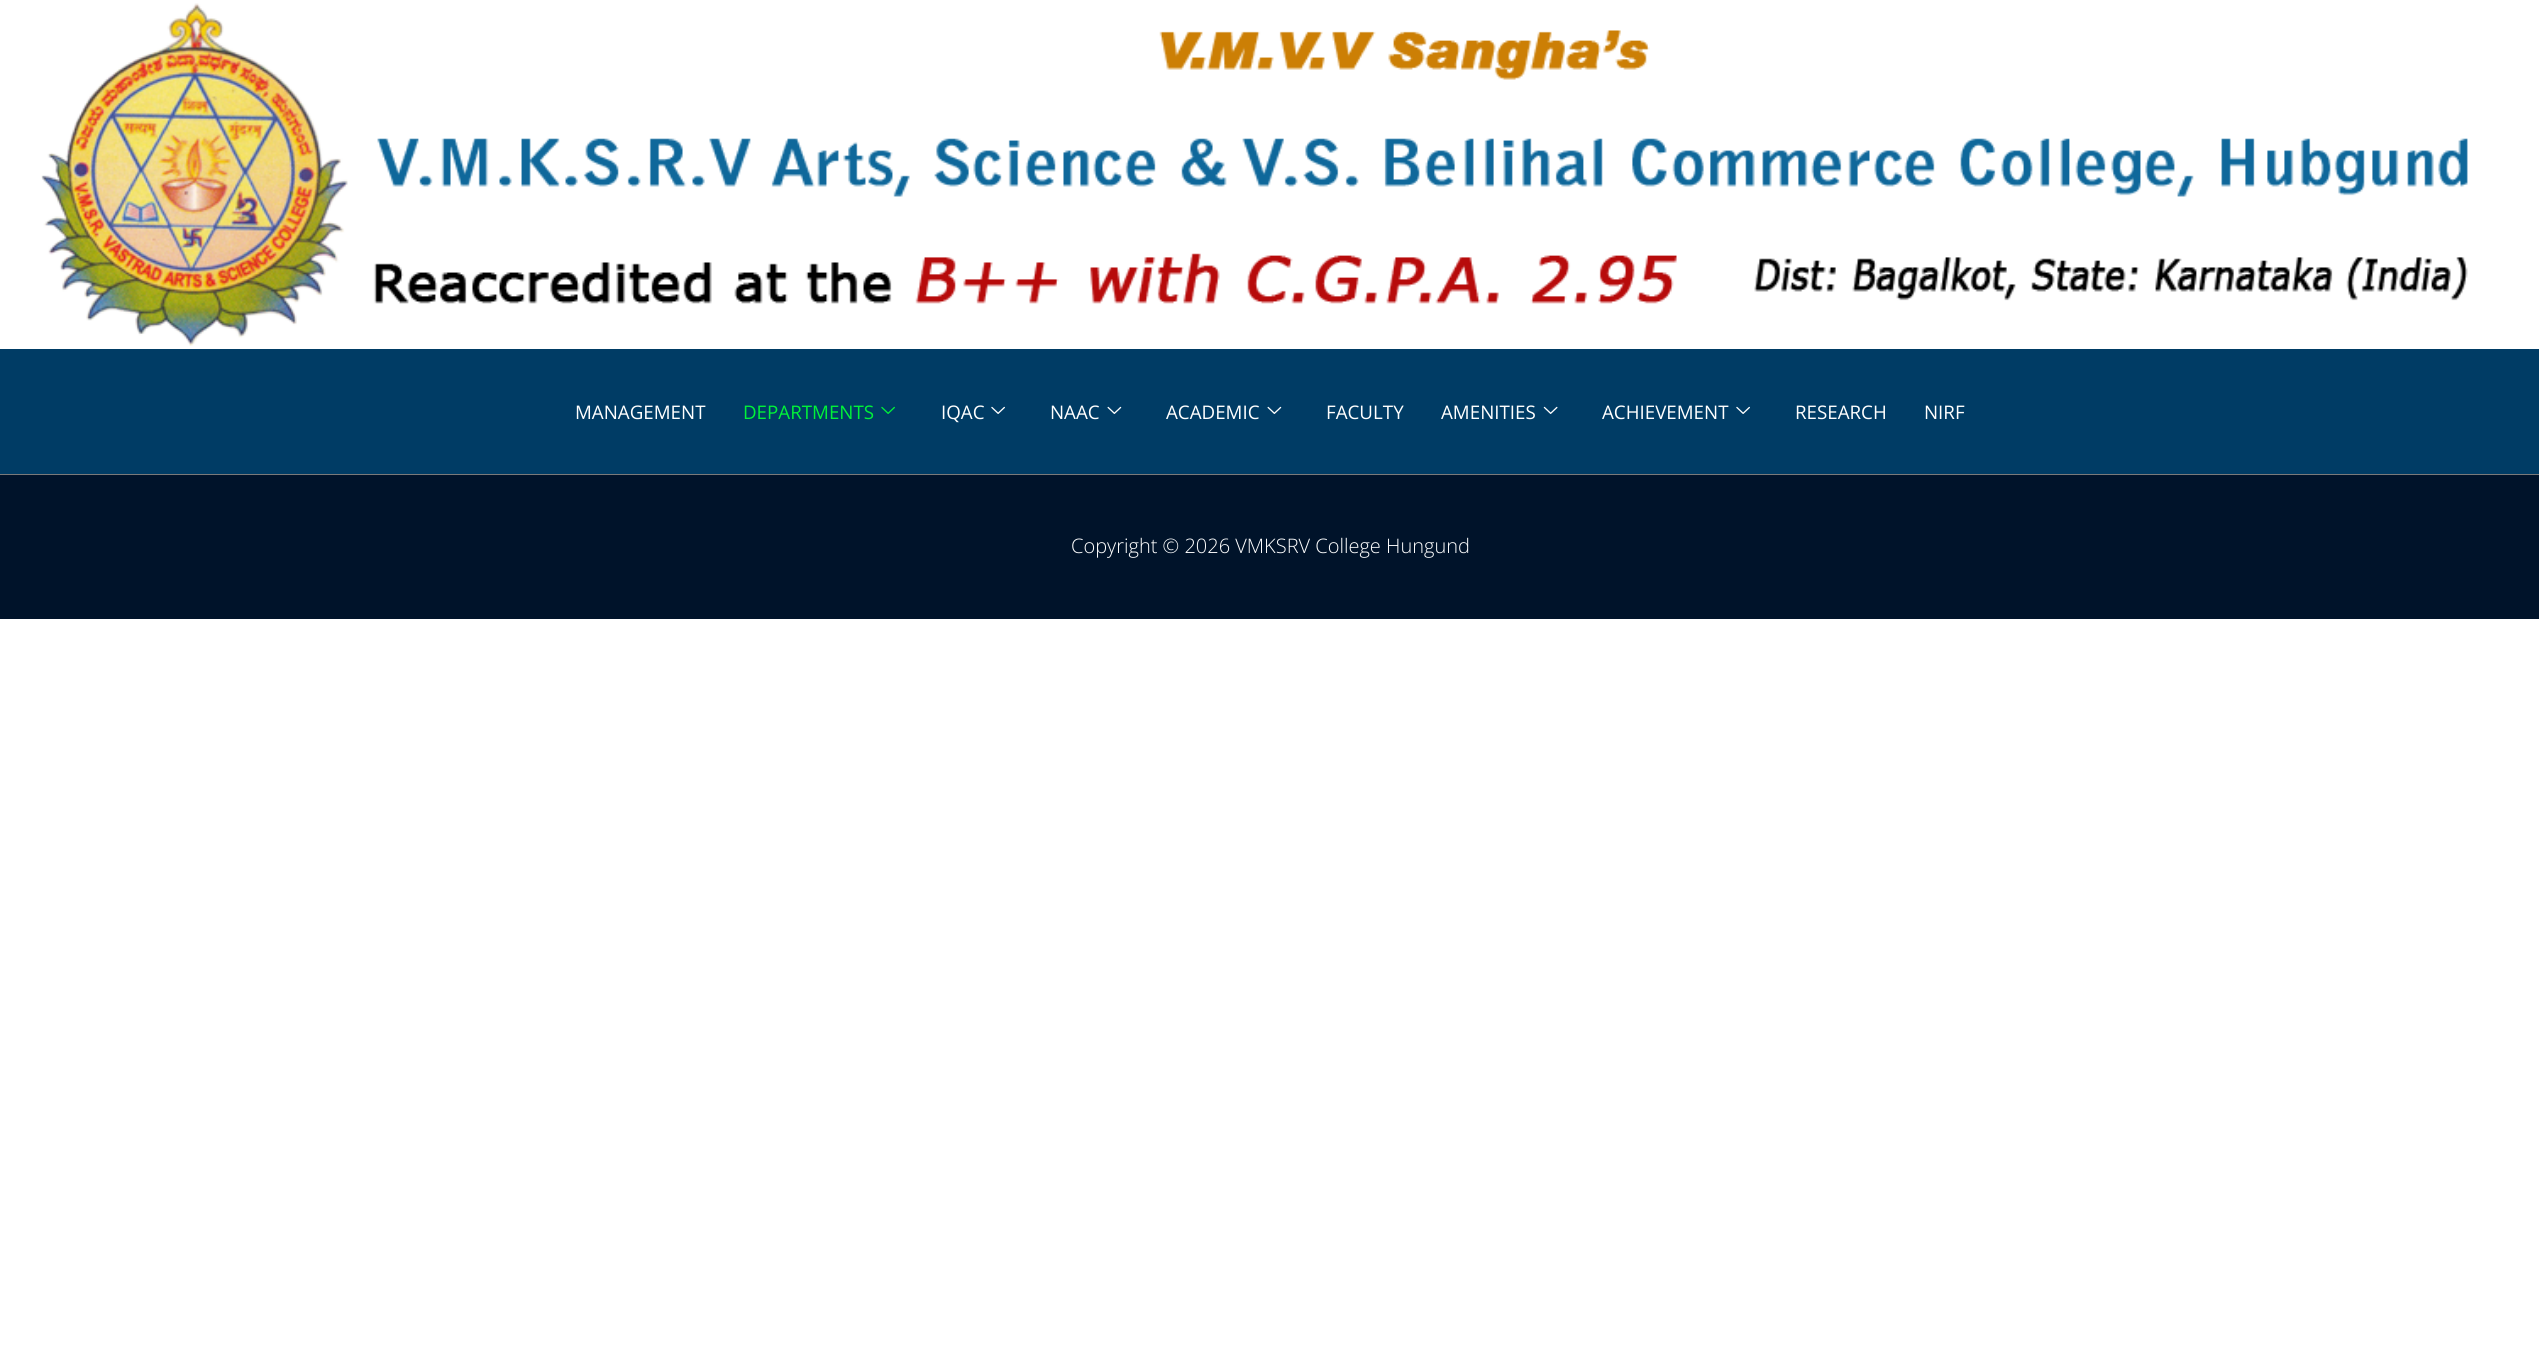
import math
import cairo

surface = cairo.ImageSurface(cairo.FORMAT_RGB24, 2539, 1353)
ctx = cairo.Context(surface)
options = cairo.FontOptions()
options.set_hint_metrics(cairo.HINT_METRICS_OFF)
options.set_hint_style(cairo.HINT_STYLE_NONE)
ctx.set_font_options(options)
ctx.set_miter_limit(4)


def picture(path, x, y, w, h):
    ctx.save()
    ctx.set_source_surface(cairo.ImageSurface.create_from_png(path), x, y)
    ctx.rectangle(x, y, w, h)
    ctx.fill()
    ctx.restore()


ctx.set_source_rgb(1, 1, 1)
ctx.paint()
picture("img1.png", 41, 3, 2427, 343)
ctx.set_source_rgb(0, 0.235, 0.396)
ctx.rectangle(0, 349, 2539, 125)
ctx.fill()
ctx.select_font_face("Open Sans")
ctx.set_font_size(18.75)
ctx.set_source_rgb(1, 1, 1)
ctx.move_to(575, 419)
ctx.show_text("MANAGEMENT")
ctx.set_source_rgb(0, 0.949, 0.22)
ctx.move_to(743, 419)
ctx.show_text("DEPARTMENTS")
picture("img2.png", 881, 406, 14, 8)
ctx.set_source_rgb(1, 1, 1)
ctx.move_to(941, 419)
ctx.show_text("IQAC")
picture("img3.png", 991, 406, 14, 8)
ctx.move_to(1050, 419)
ctx.show_text("NAAC")
picture("img4.png", 1107, 406, 15, 8)
ctx.move_to(1166, 419)
ctx.show_text("ACADEMIC")
picture("img4.png", 1267, 406, 15, 8)
ctx.move_to(1326, 419)
ctx.show_text("FACULTY")
ctx.move_to(1441, 419)
ctx.show_text("AMENITIES")
picture("img5.png", 1543, 406, 15, 8)
ctx.move_to(1602, 419)
ctx.show_text("ACHIEVEMENT")
picture("img3.png", 1736, 406, 14, 8)
ctx.move_to(1795, 419)
ctx.show_text("RESEARCH")
ctx.move_to(1924, 419)
ctx.show_text("NIRF")
ctx.set_source_rgb(0.478, 0.478, 0.478)
ctx.rectangle(0, 474, 2539, 1)
ctx.fill()
ctx.set_source_rgb(0, 0.075, 0.165)
ctx.rectangle(0, 475, 2539, 144)
ctx.fill()
ctx.select_font_face("Open Sans Light")
ctx.set_font_size(20)
ctx.set_source_rgb(1, 1, 1)
ctx.move_to(1071, 553)
ctx.show_text("Copyright © 2026 VMKSRV College Hungund")
surface.write_to_png("page.png")
